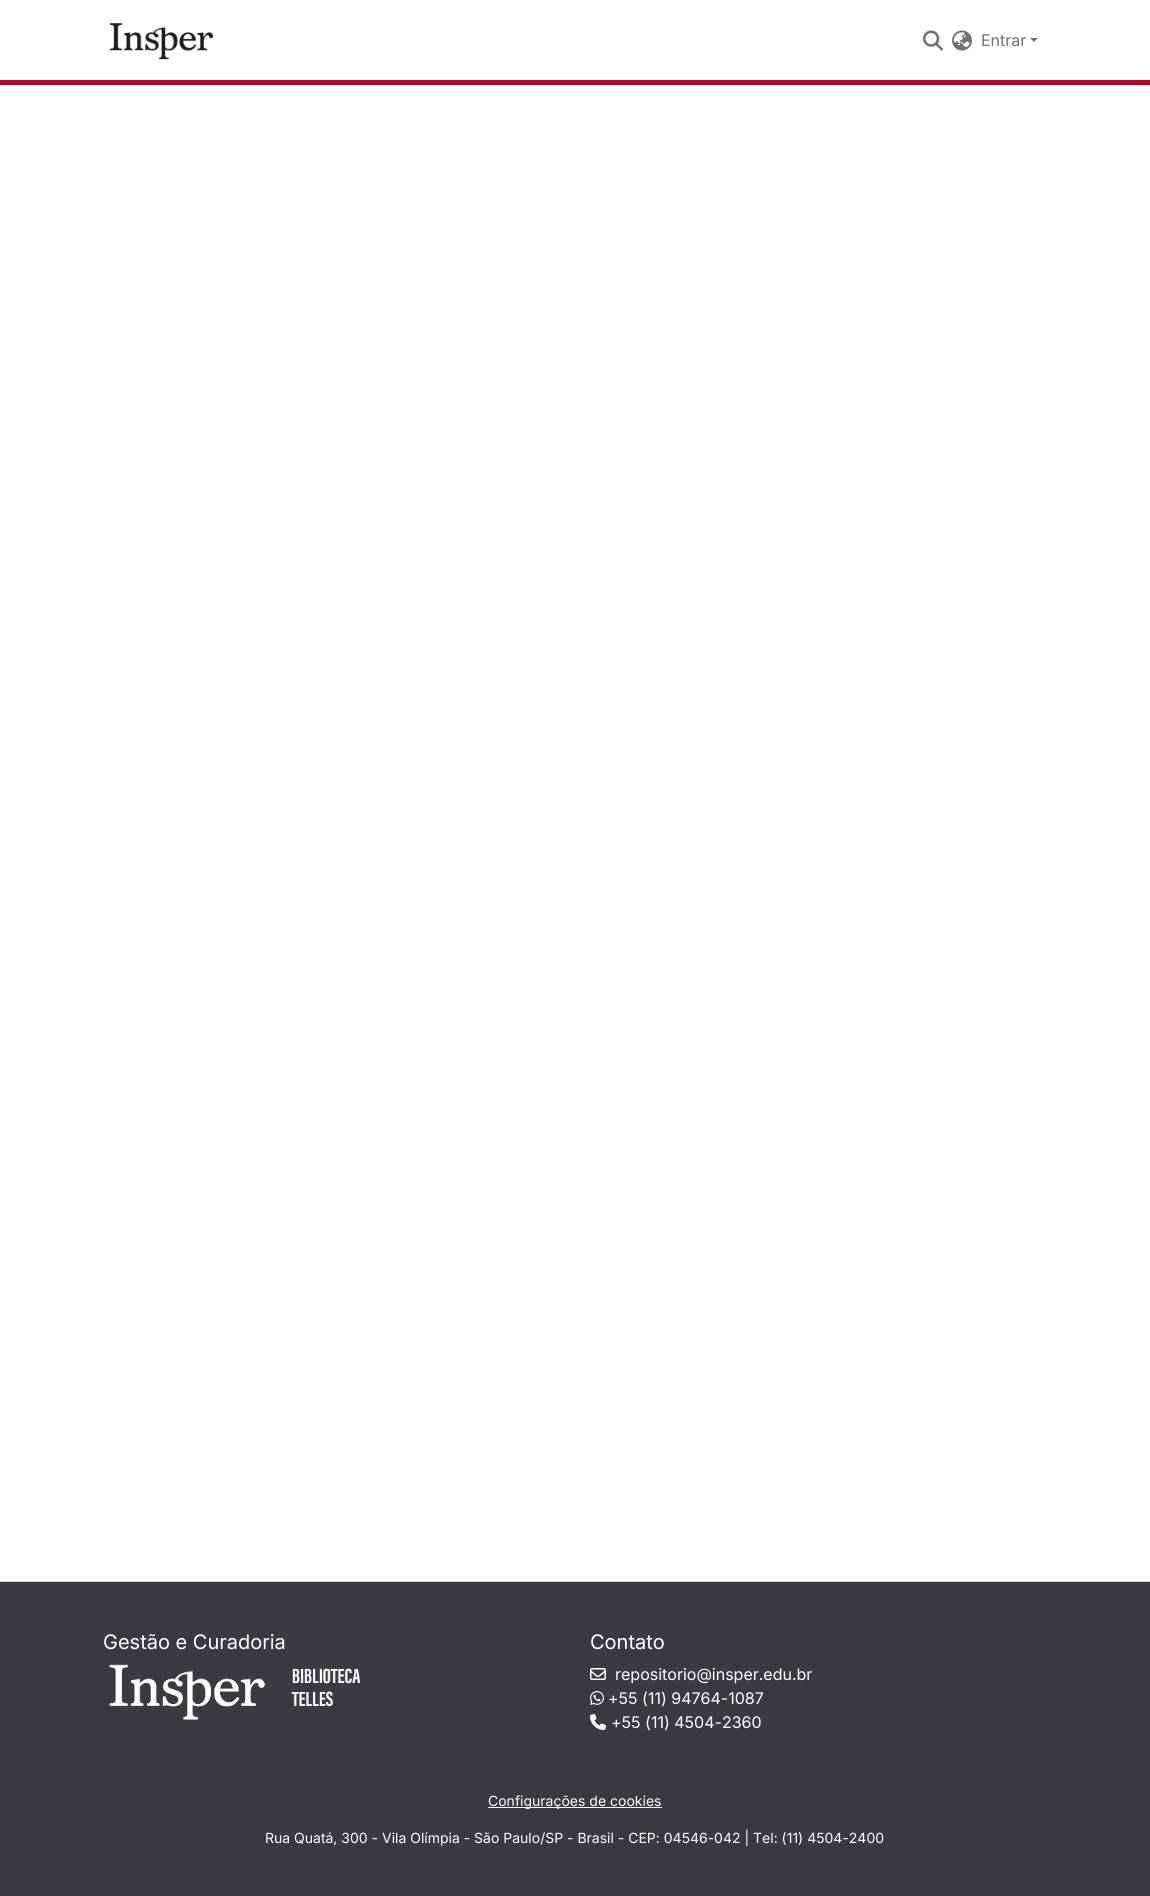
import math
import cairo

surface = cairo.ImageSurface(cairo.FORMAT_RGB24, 1150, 1896)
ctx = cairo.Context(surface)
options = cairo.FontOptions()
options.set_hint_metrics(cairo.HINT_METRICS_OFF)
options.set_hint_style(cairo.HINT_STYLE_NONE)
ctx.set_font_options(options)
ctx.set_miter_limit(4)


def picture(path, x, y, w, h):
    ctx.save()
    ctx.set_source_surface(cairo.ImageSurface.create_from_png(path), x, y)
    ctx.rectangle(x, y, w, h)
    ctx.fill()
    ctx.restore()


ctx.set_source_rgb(1, 1, 1)
ctx.paint()
ctx.set_source_rgb(0.753, 0, 0.149)
ctx.rectangle(0, 80, 1150, 5)
ctx.fill()
picture("img1.png", 110, 23, 103, 37)
picture("img2.png", 923, 30, 20, 21)
picture("img3.png", 952, 30, 20, 21)
ctx.select_font_face("Inter")
ctx.set_font_size(16)
ctx.set_source_rgb(0.439, 0.439, 0.439)
ctx.move_to(981, 46)
ctx.show_text("Entrar")
ctx.new_path()
ctx.move_to(1030, 38)
ctx.line_to(1038, 38)
ctx.line_to(1034, 42)
ctx.close_path()
ctx.fill()
ctx.set_source_rgb(0.227, 0.227, 0.255)
ctx.rectangle(0, 1582, 1150, 314)
ctx.fill()
ctx.set_source_rgb(0.808, 0.831, 0.855)
ctx.rectangle(0, 1581, 1150, 1)
ctx.fill()
ctx.set_font_size(20)
ctx.set_source_rgb(1, 1, 1)
ctx.move_to(103, 1649)
ctx.show_text("Gestão e Curadoria")
picture("img4.png", 109, 1664, 252, 56)
ctx.move_to(590, 1649)
ctx.show_text("Contato")
picture("img5.png", 590, 1668, 16, 12)
ctx.set_font_size(16)
ctx.move_to(615, 1680)
ctx.show_text("repositorio@insper.edu.br")
picture("img6.png", 590, 1691, 14, 14)
ctx.move_to(608, 1704)
ctx.show_text("+55 (11) 94764-1087")
picture("img7.png", 590, 1714, 16, 16)
ctx.move_to(611, 1728)
ctx.show_text("+55 (11) 4504-2360")
ctx.rectangle(488, 1807, 174, 1)
ctx.fill()
ctx.set_font_size(14)
ctx.move_to(488, 1806)
ctx.show_text("Configurações de cookies")
ctx.move_to(265, 1843)
ctx.show_text("Rua Quatá, 300 - Vila Olímpia - São Paulo/SP - Brasil - CEP: 04546-042 | Tel: (11) 4504-2400")
surface.write_to_png("page.png")
